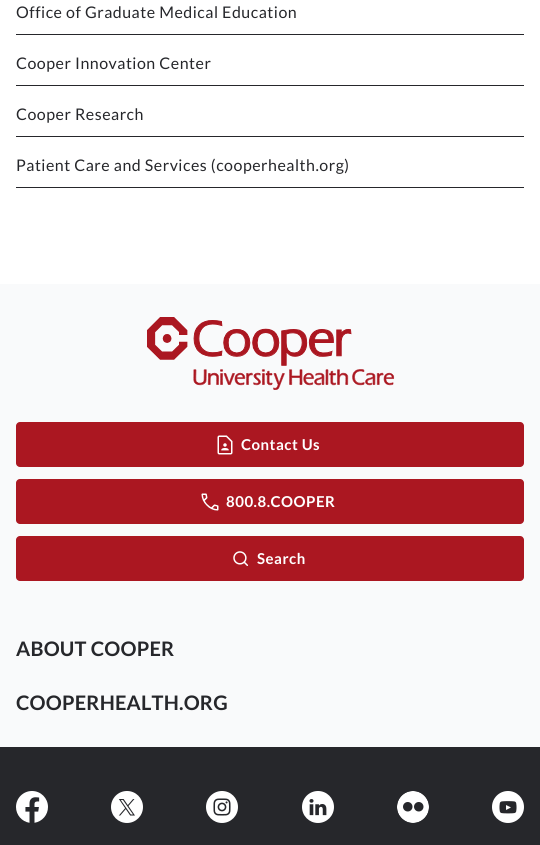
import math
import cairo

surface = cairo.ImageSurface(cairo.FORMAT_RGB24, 540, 845)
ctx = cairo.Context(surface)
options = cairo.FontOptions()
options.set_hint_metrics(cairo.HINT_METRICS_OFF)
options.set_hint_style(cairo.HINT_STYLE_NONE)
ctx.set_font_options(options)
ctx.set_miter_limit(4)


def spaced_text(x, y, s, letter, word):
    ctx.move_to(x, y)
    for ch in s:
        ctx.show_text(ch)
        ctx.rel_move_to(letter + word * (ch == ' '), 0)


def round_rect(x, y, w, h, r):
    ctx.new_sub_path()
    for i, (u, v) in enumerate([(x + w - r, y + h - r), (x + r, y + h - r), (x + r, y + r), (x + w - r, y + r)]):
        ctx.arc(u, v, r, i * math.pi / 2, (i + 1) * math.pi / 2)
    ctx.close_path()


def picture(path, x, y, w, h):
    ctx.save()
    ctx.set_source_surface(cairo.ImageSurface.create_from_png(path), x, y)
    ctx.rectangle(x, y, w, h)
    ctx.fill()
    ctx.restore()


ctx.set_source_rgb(1, 1, 1)
ctx.paint()
ctx.set_source_rgb(0.149, 0.153, 0.169)
ctx.rectangle(16, 34, 508, 1)
ctx.fill()
ctx.select_font_face("Lato")
ctx.set_font_size(16)
spaced_text(16, 18, "Office of Graduate Medical Education", 0.5, 0)
ctx.rectangle(16, 85, 508, 1)
ctx.fill()
spaced_text(16, 69, "Cooper Innovation Center", 0.5, 0)
ctx.rectangle(16, 136, 508, 1)
ctx.fill()
spaced_text(16, 120, "Cooper Research", 0.5, 0)
ctx.rectangle(16, 187, 508, 1)
ctx.fill()
spaced_text(16, 171, "Patient Care and Services (cooperhealth.org)", 0.5, 0)
ctx.set_source_rgb(0.976, 0.98, 0.984)
ctx.rectangle(0, 284, 540, 463)
ctx.fill()
picture("img1.png", 147, 317, 248, 73)
ctx.set_source_rgb(0.671, 0.09, 0.129)
round_rect(16, 422, 508, 45, 4)
ctx.fill()
picture("img2.png", 217, 435, 16, 20)
ctx.select_font_face("Lato", cairo.FONT_SLANT_NORMAL, cairo.FONT_WEIGHT_BOLD)
ctx.set_font_size(15)
ctx.set_source_rgb(1, 1, 1)
spaced_text(241, 450, "Contact Us", 0.5, 0)
ctx.set_source_rgb(0.671, 0.09, 0.129)
round_rect(16, 479, 508, 45, 4)
ctx.fill()
picture("img3.png", 201, 493, 18, 18)
ctx.set_source_rgb(1, 1, 1)
spaced_text(226, 507, "800.8.COOPER", 0.5, 0)
ctx.set_source_rgb(0.671, 0.09, 0.129)
round_rect(16, 536, 508, 45, 4)
ctx.fill()
picture("img4.png", 233, 551, 16, 15)
ctx.set_source_rgb(1, 1, 1)
spaced_text(257, 564, "Search", 0.5, 0)
ctx.set_font_size(20)
ctx.set_source_rgb(0.149, 0.153, 0.169)
spaced_text(16, 656, "ABOUT COOPER", 0.2, 0)
spaced_text(16, 710, "COOPERHEALTH.ORG", 0.2, 0)
ctx.rectangle(0, 747, 540, 98)
ctx.fill()
picture("img5.png", 16, 791, 32, 32)
picture("img6.png", 111, 791, 32, 32)
picture("img7.png", 206, 791, 32, 32)
picture("img8.png", 302, 791, 32, 32)
picture("img9.png", 397, 791, 32, 32)
picture("img10.png", 492, 791, 32, 32)
surface.write_to_png("page.png")
